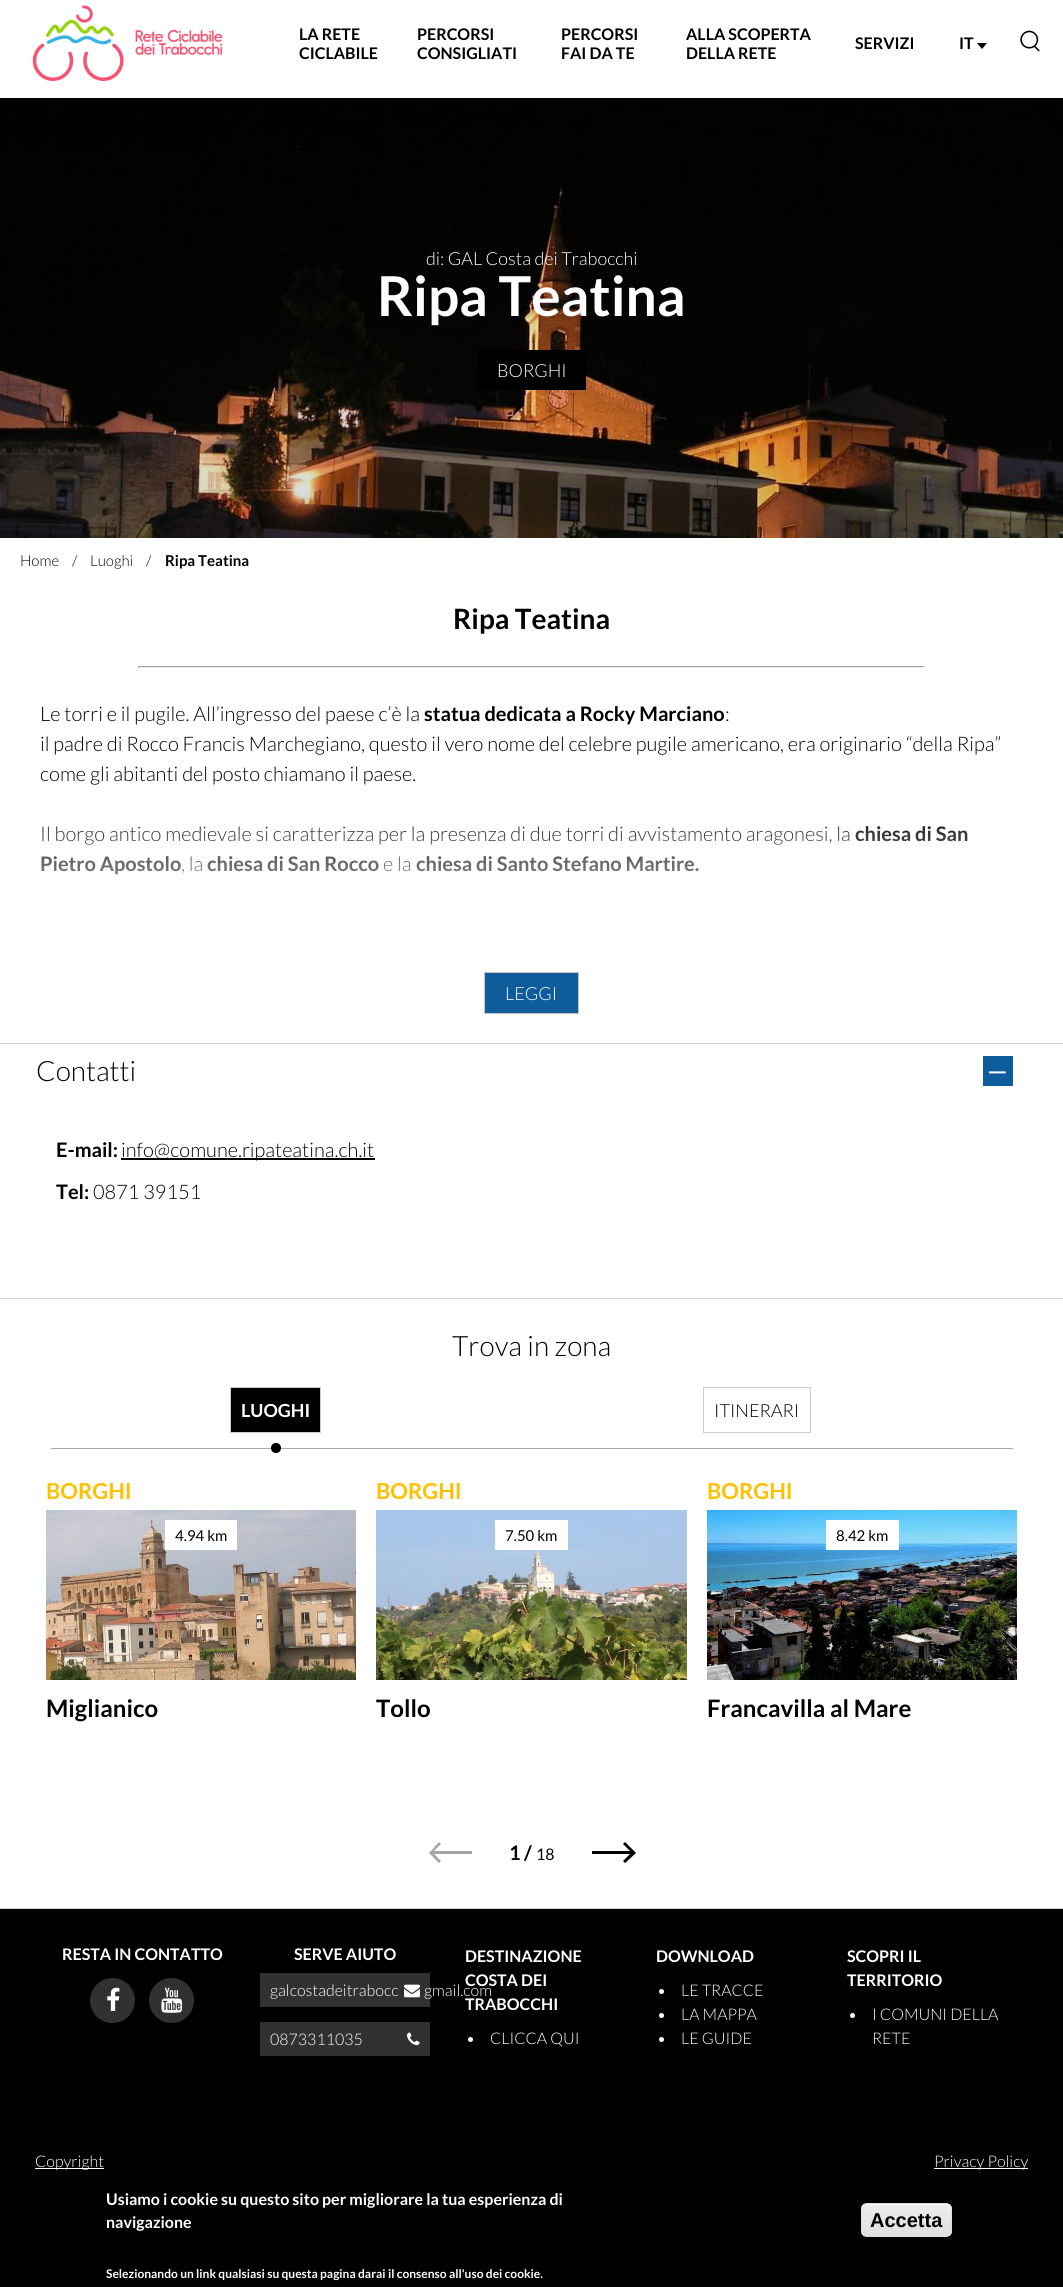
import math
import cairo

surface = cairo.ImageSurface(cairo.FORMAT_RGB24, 1063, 2287)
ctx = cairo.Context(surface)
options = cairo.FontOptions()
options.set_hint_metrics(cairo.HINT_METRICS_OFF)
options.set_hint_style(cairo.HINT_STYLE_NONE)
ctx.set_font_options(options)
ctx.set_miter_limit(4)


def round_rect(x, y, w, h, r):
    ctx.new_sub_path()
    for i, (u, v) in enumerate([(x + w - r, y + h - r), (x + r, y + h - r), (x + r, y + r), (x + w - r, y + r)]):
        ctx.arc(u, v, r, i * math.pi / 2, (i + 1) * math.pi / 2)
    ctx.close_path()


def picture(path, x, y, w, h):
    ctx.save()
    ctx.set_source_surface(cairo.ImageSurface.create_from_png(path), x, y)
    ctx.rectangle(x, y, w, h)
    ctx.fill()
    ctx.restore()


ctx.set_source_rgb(1, 1, 1)
ctx.paint()
picture("img1.png", 32, 5, 191, 77)
ctx.select_font_face("Lato", cairo.FONT_SLANT_NORMAL, cairo.FONT_WEIGHT_BOLD)
ctx.set_font_size(16)
ctx.set_source_rgb(0, 0, 0)
ctx.move_to(299, 40)
ctx.show_text("LA RETE")
ctx.move_to(299, 59)
ctx.show_text("CICLABILE")
ctx.move_to(417, 40)
ctx.show_text("PERCORSI")
ctx.move_to(417, 59)
ctx.show_text("CONSIGLIATI")
ctx.move_to(561, 40)
ctx.show_text("PERCORSI")
ctx.move_to(561, 59)
ctx.show_text("FAI DA TE")
ctx.move_to(686, 40)
ctx.show_text("ALLA SCOPERTA")
ctx.move_to(686, 59)
ctx.show_text("DELLA RETE")
ctx.move_to(855, 49)
ctx.show_text("SERVIZI")
ctx.move_to(959, 49)
ctx.show_text("IT")
ctx.new_path()
ctx.move_to(977, 43)
ctx.line_to(982, 49)
ctx.line_to(987, 43)
ctx.close_path()
ctx.fill()
picture("img2.png", 1020, 30, 20, 22)
picture("img3.png", 0, 98, 1063, 440)
ctx.select_font_face("Lato Light")
ctx.set_font_size(18)
ctx.set_source_rgb(1, 1, 1)
ctx.move_to(426, 265)
ctx.show_text("di: GAL Costa dei Trabocchi")
ctx.select_font_face("Lato", cairo.FONT_SLANT_NORMAL, cairo.FONT_WEIGHT_BOLD)
ctx.set_font_size(55)
ctx.move_to(377, 316)
ctx.show_text("Ripa Teatina")
ctx.set_source_rgb(0, 0, 0)
ctx.rectangle(477, 350, 109, 40)
ctx.fill()
ctx.select_font_face("Lato Light")
ctx.set_font_size(18)
ctx.set_source_rgb(1, 1, 1)
ctx.move_to(497, 377)
ctx.show_text("BORGHI")
ctx.set_font_size(15)
ctx.set_source_rgb(0, 0, 0)
ctx.move_to(20, 566)
ctx.show_text("Home")
ctx.move_to(72, 566)
ctx.show_text("/")
ctx.move_to(90, 566)
ctx.show_text("Luoghi")
ctx.move_to(146, 566)
ctx.show_text("/")
ctx.select_font_face("Lato", cairo.FONT_SLANT_NORMAL, cairo.FONT_WEIGHT_BOLD)
ctx.move_to(165, 566)
ctx.show_text("Ripa Teatina")
ctx.set_font_size(28)
ctx.move_to(453, 629)
ctx.show_text("Ripa Teatina")
ctx.set_source_rgb(0.624, 0.624, 0.624)
ctx.rectangle(138, 666, 787, 1)
ctx.fill()
ctx.set_source_rgb(0.933, 0.933, 0.933)
ctx.rectangle(924, 666, 1, 2)
ctx.fill()
ctx.rectangle(138, 667, 787, 1)
ctx.fill()
ctx.set_source_rgb(0.624, 0.624, 0.624)
ctx.rectangle(138, 666, 1, 2)
ctx.fill()
ctx.select_font_face("Lato Light")
ctx.set_font_size(20)
ctx.set_source_rgb(0, 0, 0)
ctx.move_to(40, 721)
ctx.show_text("Le torri e il pugile. All’ingresso del paese c’è la")
ctx.select_font_face("Lato", cairo.FONT_SLANT_NORMAL, cairo.FONT_WEIGHT_BOLD)
ctx.move_to(424, 721)
ctx.show_text("statua dedicata a Rocky Marciano")
ctx.select_font_face("Lato Light")
ctx.move_to(725, 721)
ctx.show_text(":")
ctx.move_to(40, 751)
ctx.show_text("il padre di Rocco Francis Marchegiano, questo il vero nome del celebre pugile americano, era originario “della Ripa”")
ctx.move_to(40, 781)
ctx.show_text("come gli abitanti del posto chiamano il paese.")
ctx.move_to(40, 841)
ctx.show_text("Il borgo antico medievale si caratterizza per la presenza di due torri di avvistamento aragonesi, la")
ctx.select_font_face("Lato", cairo.FONT_SLANT_NORMAL, cairo.FONT_WEIGHT_BOLD)
ctx.move_to(855, 841)
ctx.show_text("chiesa di San")
ctx.move_to(40, 871)
ctx.show_text("Pietro Apostolo")
ctx.select_font_face("Lato Light")
ctx.move_to(181, 871)
ctx.show_text(", la")
ctx.select_font_face("Lato", cairo.FONT_SLANT_NORMAL, cairo.FONT_WEIGHT_BOLD)
ctx.move_to(207, 871)
ctx.show_text("chiesa di San Rocco")
ctx.select_font_face("Lato Light")
ctx.move_to(383, 871)
ctx.show_text("e la")
ctx.select_font_face("Lato", cairo.FONT_SLANT_NORMAL, cairo.FONT_WEIGHT_BOLD)
ctx.move_to(416, 871)
ctx.show_text("chiesa di Santo Stefano Martire.")
gradient = cairo.LinearGradient(532, 802, 532, 952)
gradient.add_color_stop_rgba(0, 1, 1, 1, 0)
gradient.add_color_stop_rgba(1, 1, 1, 1, 1)
ctx.set_source(gradient)
ctx.rectangle(41, 826, 926, 49)
ctx.fill()
ctx.set_source_rgb(0.055, 0.361, 0.608)
ctx.rectangle(484.5, 972.5, 94, 41)
ctx.fill_preserve()
ctx.set_source_rgb(0.776, 0.776, 0.776)
ctx.set_line_width(1)
ctx.stroke()
ctx.select_font_face("Lato Light")
ctx.set_font_size(18)
ctx.set_source_rgb(1, 1, 1)
ctx.move_to(505, 1000)
ctx.show_text("LEGGI")
ctx.set_source_rgb(0.827, 0.827, 0.827)
ctx.rectangle(0, 1043, 1063, 1)
ctx.fill()
ctx.set_font_size(28)
ctx.set_source_rgb(0, 0, 0)
ctx.move_to(36, 1081)
ctx.show_text("Contatti")
ctx.set_source_rgb(0.055, 0.361, 0.608)
ctx.rectangle(983, 1056, 30, 30)
ctx.fill()
ctx.select_font_face("Liberation Sans")
ctx.set_font_size(30)
ctx.set_source_rgb(1, 1, 1)
ctx.move_to(989, 1080)
ctx.show_text("‒")
ctx.select_font_face("Lato", cairo.FONT_SLANT_NORMAL, cairo.FONT_WEIGHT_BOLD)
ctx.set_font_size(20)
ctx.set_source_rgb(0, 0, 0)
ctx.move_to(56, 1157)
ctx.show_text("E-mail:")
ctx.rectangle(121, 1158, 254, 2)
ctx.fill()
ctx.select_font_face("Lato Light")
ctx.move_to(121, 1157)
ctx.show_text("info@comune.ripateatina.ch.it")
ctx.select_font_face("Lato", cairo.FONT_SLANT_NORMAL, cairo.FONT_WEIGHT_BOLD)
ctx.move_to(56, 1199)
ctx.show_text("Tel:")
ctx.select_font_face("Lato Light")
ctx.move_to(93, 1199)
ctx.show_text("0871 39151")
ctx.set_source_rgb(0.827, 0.827, 0.827)
ctx.rectangle(0, 1298, 1063, 1)
ctx.fill()
ctx.set_font_size(28)
ctx.set_source_rgb(0, 0, 0)
ctx.move_to(452, 1356)
ctx.show_text("Trova in zona")
ctx.set_source_rgb(0.667, 0.667, 0.667)
ctx.rectangle(51, 1448, 962, 1)
ctx.fill()
ctx.set_source_rgb(0, 0, 0)
ctx.rectangle(230.5, 1387.5, 90, 45)
ctx.fill_preserve()
ctx.set_source_rgb(0.8, 0.8, 0.8)
ctx.stroke()
ctx.select_font_face("Lato", cairo.FONT_SLANT_NORMAL, cairo.FONT_WEIGHT_BOLD)
ctx.set_font_size(18)
ctx.set_source_rgb(1, 1, 1)
ctx.move_to(241, 1417)
ctx.show_text("LUOGHI")
ctx.set_source_rgb(0, 0, 0)
ctx.new_path()
ctx.arc(276, 1448, 5, 0, 2 * math.pi)
ctx.fill()
ctx.rectangle(703.5, 1387.5, 107, 45)
ctx.set_source_rgb(0.8, 0.8, 0.8)
ctx.stroke()
ctx.select_font_face("Lato Light")
ctx.set_source_rgb(0, 0, 0)
ctx.move_to(714, 1417)
ctx.show_text("ITINERARI")
ctx.select_font_face("Lato", cairo.FONT_SLANT_NORMAL, cairo.FONT_WEIGHT_BOLD)
ctx.set_font_size(22)
ctx.set_source_rgb(1, 0.753, 0)
ctx.move_to(46, 1499)
ctx.show_text("BORGHI")
picture("img4.png", 46, 1510, 310, 170)
ctx.set_source_rgb(1, 1, 1)
ctx.rectangle(165, 1520, 72, 30)
ctx.fill()
ctx.select_font_face("Lato")
ctx.set_font_size(15)
ctx.set_source_rgb(0, 0, 0)
ctx.move_to(175, 1541)
ctx.show_text("4.94 km")
ctx.select_font_face("Lato", cairo.FONT_SLANT_NORMAL, cairo.FONT_WEIGHT_BOLD)
ctx.set_font_size(24)
ctx.move_to(46, 1717)
ctx.show_text("Miglianico")
ctx.set_font_size(22)
ctx.set_source_rgb(1, 0.753, 0)
ctx.move_to(376, 1499)
ctx.show_text("BORGHI")
picture("img5.png", 376, 1510, 311, 170)
ctx.set_source_rgb(1, 1, 1)
ctx.rectangle(495, 1520, 73, 30)
ctx.fill()
ctx.select_font_face("Lato")
ctx.set_font_size(15)
ctx.set_source_rgb(0, 0, 0)
ctx.move_to(505, 1541)
ctx.show_text("7.50 km")
ctx.select_font_face("Lato", cairo.FONT_SLANT_NORMAL, cairo.FONT_WEIGHT_BOLD)
ctx.set_font_size(24)
ctx.move_to(376, 1717)
ctx.show_text("Tollo")
ctx.set_font_size(22)
ctx.set_source_rgb(1, 0.753, 0)
ctx.move_to(707, 1499)
ctx.show_text("BORGHI")
picture("img6.png", 707, 1510, 310, 170)
ctx.set_source_rgb(1, 1, 1)
ctx.rectangle(826, 1520, 73, 30)
ctx.fill()
ctx.select_font_face("Lato")
ctx.set_font_size(15)
ctx.set_source_rgb(0, 0, 0)
ctx.move_to(836, 1541)
ctx.show_text("8.42 km")
ctx.select_font_face("Lato", cairo.FONT_SLANT_NORMAL, cairo.FONT_WEIGHT_BOLD)
ctx.set_font_size(24)
ctx.move_to(707, 1717)
ctx.show_text("Francavilla al Mare")
ctx.set_source_rgb(0.651, 0.651, 0.651)
ctx.new_path()
ctx.move_to(434, 1854)
ctx.line_to(472, 1854)
ctx.line_to(472, 1851)
ctx.line_to(434, 1851)
ctx.line_to(441, 1844)
ctx.line_to(439, 1842)
ctx.line_to(429, 1853)
ctx.line_to(439, 1863)
ctx.line_to(441, 1861)
ctx.close_path()
ctx.fill()
ctx.set_font_size(20)
ctx.set_source_rgb(0, 0, 0)
ctx.move_to(509, 1860)
ctx.show_text("1")
ctx.move_to(524, 1860)
ctx.show_text("/")
ctx.select_font_face("Lato")
ctx.set_font_size(16)
ctx.move_to(536, 1860)
ctx.show_text("18")
ctx.new_path()
ctx.move_to(630, 1851)
ctx.line_to(592, 1851)
ctx.line_to(592, 1854)
ctx.line_to(630, 1854)
ctx.line_to(623, 1861)
ctx.line_to(625, 1863)
ctx.line_to(636, 1853)
ctx.line_to(625, 1842)
ctx.line_to(623, 1844)
ctx.close_path()
ctx.fill()
ctx.rectangle(0, 1909, 1063, 378)
ctx.fill()
ctx.set_source_rgb(0.827, 0.827, 0.827)
ctx.rectangle(0, 1908, 1063, 1)
ctx.fill()
ctx.select_font_face("Lato", cairo.FONT_SLANT_NORMAL, cairo.FONT_WEIGHT_BOLD)
ctx.set_source_rgb(1, 1, 1)
ctx.move_to(62, 1960)
ctx.show_text("RESTA IN CONTATTO")
ctx.set_source_rgb(0.192, 0.192, 0.192)
ctx.new_path()
ctx.arc(112.5, 2000.5, 22.5, 0, 2 * math.pi)
ctx.fill()
picture("img7.png", 107, 1987, 13, 24)
ctx.arc(171.5, 2000.5, 22.5, 0, 2 * math.pi)
ctx.fill()
picture("img8.png", 161, 1987, 22, 26)
ctx.set_source_rgb(1, 1, 1)
ctx.move_to(294, 1960)
ctx.show_text("SERVE AIUTO")
ctx.set_source_rgb(0.192, 0.192, 0.192)
ctx.rectangle(260, 1973, 170, 34)
ctx.fill()
ctx.select_font_face("Lato Light")
ctx.set_source_rgb(1, 1, 1)
ctx.move_to(270, 1996)
ctx.show_text("galcostadeitrabocc")
picture("img9.png", 404, 1984, 16, 14)
ctx.move_to(424, 1996)
ctx.show_text("gmail.com")
ctx.set_source_rgb(0.192, 0.192, 0.192)
ctx.rectangle(260, 2022, 170, 34)
ctx.fill()
ctx.set_source_rgb(1, 1, 1)
ctx.move_to(270, 2045)
ctx.show_text("0873311035")
picture("img10.png", 407, 2032, 13, 14)
ctx.select_font_face("Lato", cairo.FONT_SLANT_NORMAL, cairo.FONT_WEIGHT_BOLD)
ctx.move_to(465, 1962)
ctx.show_text("DESTINAZIONE")
ctx.move_to(465, 1986)
ctx.show_text("COSTA DEI")
ctx.move_to(465, 2010)
ctx.show_text("TRABOCCHI")
ctx.new_path()
ctx.arc(470.5, 2039.5, 2.5, 0, 2 * math.pi)
ctx.fill()
ctx.select_font_face("Lato Light")
ctx.move_to(490, 2044)
ctx.show_text("CLICCA QUI")
ctx.select_font_face("Lato", cairo.FONT_SLANT_NORMAL, cairo.FONT_WEIGHT_BOLD)
ctx.move_to(656, 1962)
ctx.show_text("DOWNLOAD")
ctx.new_path()
ctx.arc(661.5, 1991.5, 2.5, 0, 2 * math.pi)
ctx.fill()
ctx.select_font_face("Lato Light")
ctx.move_to(681, 1996)
ctx.show_text("LE TRACCE")
ctx.new_path()
ctx.arc(661.5, 2015.5, 2.5, 0, 2 * math.pi)
ctx.fill()
ctx.move_to(681, 2020)
ctx.show_text("LA MAPPA")
ctx.new_path()
ctx.arc(661.5, 2039.5, 2.5, 0, 2 * math.pi)
ctx.fill()
ctx.move_to(681, 2044)
ctx.show_text("LE GUIDE")
ctx.select_font_face("Lato", cairo.FONT_SLANT_NORMAL, cairo.FONT_WEIGHT_BOLD)
ctx.move_to(847, 1962)
ctx.show_text("SCOPRI IL")
ctx.move_to(847, 1986)
ctx.show_text("TERRITORIO")
ctx.new_path()
ctx.arc(852.5, 2015.5, 2.5, 0, 2 * math.pi)
ctx.fill()
ctx.select_font_face("Lato Light")
ctx.move_to(872, 2020)
ctx.show_text("I COMUNI DELLA")
ctx.move_to(872, 2044)
ctx.show_text("RETE")
ctx.rectangle(35, 2168, 69, 1)
ctx.fill()
ctx.move_to(35, 2167)
ctx.show_text("Copyright")
ctx.rectangle(934, 2168, 94, 1)
ctx.fill()
ctx.move_to(934, 2167)
ctx.show_text("Privacy Policy")
ctx.select_font_face("Lato", cairo.FONT_SLANT_NORMAL, cairo.FONT_WEIGHT_BOLD)
ctx.move_to(106, 2205)
ctx.show_text("Usiamo i cookie su questo sito per migliorare la tua esperienza di")
ctx.move_to(106, 2228)
ctx.show_text("navigazione")
ctx.set_font_size(12)
ctx.move_to(106, 2278)
ctx.show_text("Selezionando un link qualsiasi su questa pagina darai il consenso all'uso dei cookie.")
ctx.save()
round_rect(861, 2203, 91, 34, 6)
ctx.clip()
gradient = cairo.LinearGradient(907, 2204, 907, 2236)
gradient.add_color_stop_rgba(0.05, 0.929, 0.929, 0.929, 1)
gradient.add_color_stop_rgba(1, 0.875, 0.875, 0.875, 1)
ctx.set_source(gradient)
ctx.rectangle(861, 2204, 91, 32)
ctx.fill()
ctx.restore()
ctx.new_path()
ctx.move_to(867, 2205)
ctx.line_to(946, 2205)
ctx.curve_to(949, 2205, 951, 2207, 951, 2210)
ctx.curve_to(951, 2201, 938, 2204, 933, 2204)
ctx.line_to(880, 2204)
ctx.curve_to(875, 2204, 862, 2201, 862, 2210)
ctx.curve_to(862, 2207, 864, 2205, 867, 2205)
ctx.close_path()
ctx.fill()
round_rect(861.5, 2203.5, 90, 33, 5.5)
ctx.set_source_rgb(0.863, 0.863, 0.863)
ctx.stroke()
ctx.select_font_face("Liberation Sans", cairo.FONT_SLANT_NORMAL, cairo.FONT_WEIGHT_BOLD)
ctx.set_font_size(20)
ctx.set_source_rgb(0, 0, 0)
ctx.move_to(870, 2227)
ctx.show_text("Accetta")
surface.write_to_png("page.png")
